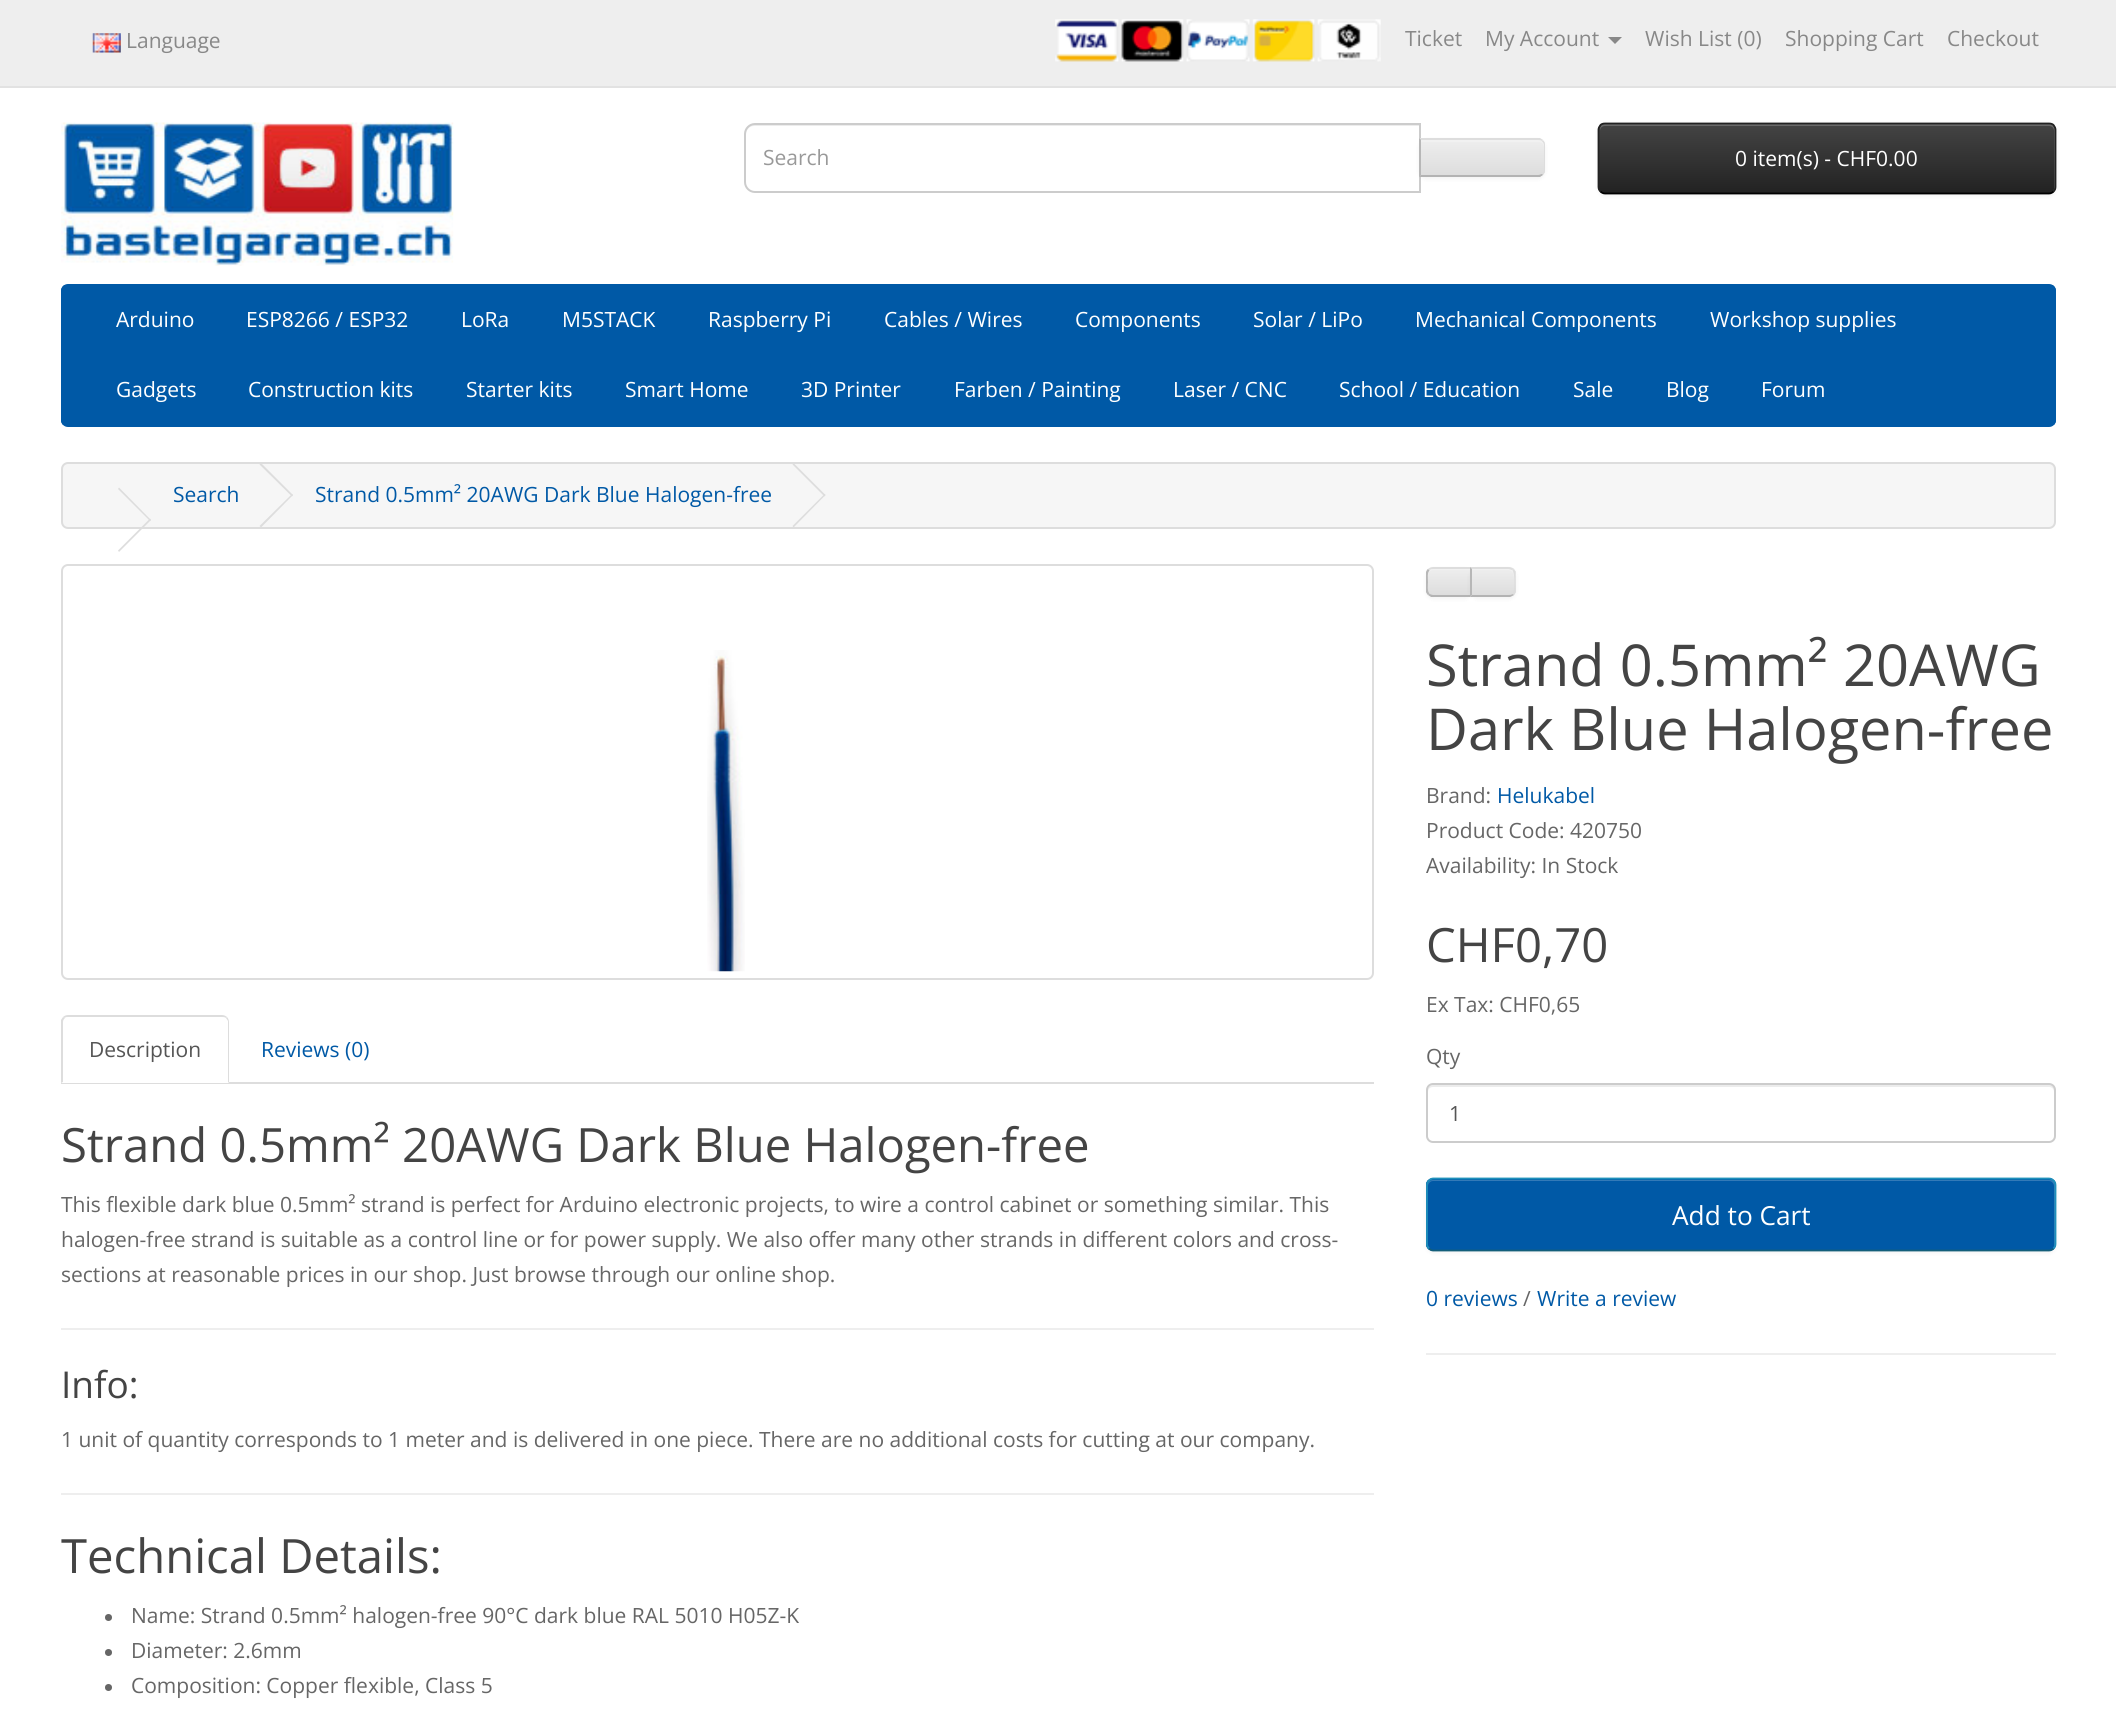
import math
import cairo

surface = cairo.ImageSurface(cairo.FORMAT_RGB24, 2116, 1711)
ctx = cairo.Context(surface)
options = cairo.FontOptions()
options.set_hint_metrics(cairo.HINT_METRICS_OFF)
options.set_hint_style(cairo.HINT_STYLE_NONE)
ctx.set_font_options(options)
ctx.set_miter_limit(4)


def round_rect(x, y, w, h, r):
    ctx.new_sub_path()
    for i, (u, v) in enumerate([(x + w - r, y + h - r), (x + r, y + h - r), (x + r, y + r), (x + w - r, y + r)]):
        ctx.arc(u, v, r, i * math.pi / 2, (i + 1) * math.pi / 2)
    ctx.close_path()


def shadow(x, y, w, h, r, blur, alpha):
    ctx.push_group_with_content(cairo.CONTENT_ALPHA)
    ctx.set_operator(cairo.OPERATOR_SOURCE)
    for i in range(15, -16, -2):
        e = blur * i / 6
        if min(w, h) + 2 * e > 0:
            ctx.set_source_rgba(0, 0, 0, alpha * math.erfc((i - 1) / 8.5) / 2)
            round_rect(x - e, y - e, w + 2 * e, h + 2 * e, max(0, min(r + e + blur * .6, min(w, h) / 2 + e)))
            ctx.fill()
    ctx.mask(ctx.pop_group())


def picture(path, x, y, w, h):
    ctx.save()
    ctx.set_source_surface(cairo.ImageSurface.create_from_png(path), x, y)
    ctx.rectangle(x, y, w, h)
    ctx.fill()
    ctx.restore()


ctx.set_source_rgb(1, 1, 1)
ctx.paint()
ctx.set_source_rgb(0.933, 0.933, 0.933)
ctx.rectangle(0, 0, 2116, 86)
ctx.fill()
ctx.set_source_rgb(0.886, 0.886, 0.886)
ctx.rectangle(0, 86, 2116, 2)
ctx.fill()
picture("img1.png", 92, 33, 29, 20)
ctx.select_font_face("Open Sans")
ctx.set_font_size(21)
ctx.set_source_rgb(0.533, 0.533, 0.533)
ctx.move_to(126, 48)
ctx.show_text("Language")
picture("img2.png", 1055, 19, 326, 43)
ctx.move_to(1405, 46)
ctx.show_text("Ticket")
ctx.move_to(1485, 46)
ctx.show_text("My Account")
ctx.new_path()
ctx.move_to(1608, 37)
ctx.line_to(1622, 37)
ctx.line_to(1615, 44)
ctx.close_path()
ctx.fill()
ctx.move_to(1645, 46)
ctx.show_text("Wish List (0)")
ctx.move_to(1785, 46)
ctx.show_text("Shopping Cart")
ctx.move_to(1947, 46)
ctx.show_text("Checkout")
picture("img3.png", 61, 122, 393, 144)
ctx.set_source_rgb(0.925, 0.925, 0.925)
ctx.new_path()
ctx.move_to(754, 126)
ctx.line_to(1419, 126)
ctx.line_to(1419, 124)
ctx.line_to(755, 124)
ctx.curve_to(750, 124, 746, 128, 746, 133)
ctx.line_to(746, 135)
ctx.curve_to(746, 130, 749, 126, 754, 126)
ctx.close_path()
ctx.fill()
ctx.new_path()
ctx.move_to(755, 124)
ctx.line_to(1420, 124)
ctx.line_to(1420, 192)
ctx.line_to(755, 192)
ctx.curve_to(749.5, 192, 745, 187.5, 745, 182)
ctx.line_to(745, 134)
ctx.curve_to(745, 128.5, 749.5, 124, 755, 124)
ctx.close_path()
ctx.set_source_rgb(0.8, 0.8, 0.8)
ctx.stroke()
ctx.set_source_rgb(0.6, 0.6, 0.6)
ctx.move_to(763, 165)
ctx.show_text("Search")
ctx.set_source_rgb(0, 0, 0)
shadow(1419, 140, 126, 39, 7, 2, 0.05)
ctx.save()
ctx.new_path()
ctx.move_to(1419, 138)
ctx.line_to(1538, 138)
ctx.curve_to(1542, 138, 1545, 141, 1545, 145)
ctx.line_to(1545, 170)
ctx.curve_to(1545, 174, 1542, 177, 1538, 177)
ctx.line_to(1419, 177)
ctx.close_path()
ctx.clip()
gradient = cairo.LinearGradient(1482, 140, 1482, 175)
gradient.add_color_stop_rgba(0, 0.933, 0.933, 0.933, 1)
gradient.add_color_stop_rgba(1, 0.867, 0.867, 0.867, 1)
ctx.set_source(gradient)
ctx.rectangle(1421, 140, 124, 35)
ctx.fill()
ctx.restore()
ctx.set_source_rgb(0.945, 0.945, 0.945)
ctx.new_path()
ctx.move_to(1421, 142)
ctx.line_to(1538, 142)
ctx.curve_to(1541, 142, 1544, 144, 1544, 147)
ctx.line_to(1544, 145)
ctx.curve_to(1544, 142, 1542, 140, 1539, 140)
ctx.line_to(1421, 140)
ctx.close_path()
ctx.fill()
ctx.set_source_rgb(0.867, 0.867, 0.867)
ctx.new_path()
ctx.move_to(1421, 140)
ctx.line_to(1419, 138)
ctx.line_to(1540, 138)
ctx.line_to(1543, 140)
ctx.line_to(1542, 141)
ctx.curve_to(1541, 140, 1540, 140, 1538, 140)
ctx.close_path()
ctx.fill()
ctx.new_path()
ctx.move_to(1543, 140.5)
ctx.curve_to(1544.5, 141.5, 1545, 143, 1545, 145)
ctx.line_to(1545, 170)
ctx.curve_to(1545, 172, 1544.5, 173.5, 1543, 174.5)
ctx.line_to(1542, 173.5)
ctx.curve_to(1543, 173, 1544, 171.5, 1544, 170)
ctx.line_to(1544, 145)
ctx.curve_to(1544, 143.5, 1543, 142, 1542, 141.5)
ctx.close_path()
ctx.fill()
ctx.set_source_rgb(0.702, 0.702, 0.702)
ctx.new_path()
ctx.move_to(1543, 175)
ctx.line_to(1540, 177)
ctx.line_to(1419, 177)
ctx.line_to(1421, 175)
ctx.line_to(1538, 175)
ctx.curve_to(1540, 175, 1541, 174, 1542, 174)
ctx.close_path()
ctx.fill()
ctx.set_source_rgb(0.718, 0.718, 0.718)
ctx.new_path()
ctx.move_to(1419, 177)
ctx.line_to(1421, 175)
ctx.line_to(1421, 140)
ctx.line_to(1419, 138)
ctx.close_path()
ctx.fill()
ctx.set_source_rgb(0, 0, 0)
shadow(1598, 124, 458, 72, 7, 2, 0.05)
ctx.save()
round_rect(1598, 123, 458, 71, 7)
ctx.clip()
gradient = cairo.LinearGradient(1827, 124, 1827, 193)
gradient.add_color_stop_rgba(0, 0.267, 0.267, 0.267, 1)
gradient.add_color_stop_rgba(1, 0.133, 0.133, 0.133, 1)
ctx.set_source(gradient)
ctx.rectangle(1598, 124, 458, 69)
ctx.fill()
ctx.restore()
ctx.set_source_rgba(1, 1, 1, 0.2)
ctx.new_path()
ctx.move_to(1605, 126)
ctx.line_to(2049, 126)
ctx.curve_to(2052, 126, 2054, 128, 2054, 131)
ctx.line_to(2054, 189)
ctx.line_to(2053, 192)
ctx.curve_to(2054, 191, 2055, 189, 2055, 188)
ctx.line_to(2055, 129)
ctx.curve_to(2055, 126, 2053, 124, 2050, 124)
ctx.line_to(1605, 124)
ctx.curve_to(1602, 124, 1600, 126, 1600, 129)
ctx.line_to(1600, 131)
ctx.curve_to(1600, 128, 1602, 126, 1605, 126)
ctx.close_path()
ctx.fill()
ctx.new_path()
ctx.move_to(2053.5, 191.5)
ctx.curve_to(2052.5, 192.5, 2051, 193.5, 2049, 193.5)
ctx.line_to(1605, 193.5)
ctx.curve_to(1603, 193.5, 1601.5, 192.5, 1600.5, 191.5)
ctx.set_source_rgb(0, 0, 0)
ctx.set_line_width(1.8)
ctx.stroke()
ctx.new_path()
ctx.move_to(1600.5, 191.5)
ctx.curve_to(1599.5, 190.5, 1598.5, 189, 1598.5, 187)
ctx.line_to(1598.5, 129.5)
ctx.curve_to(1598.5, 128, 1599.5, 126.5, 1600.5, 125)
ctx.curve_to(1601.5, 124, 1603, 123.5, 1605, 123.5)
ctx.line_to(2049, 123.5)
ctx.curve_to(2051, 123.5, 2052.5, 124, 2053.5, 125)
ctx.curve_to(2054.5, 126.5, 2055.5, 128, 2055.5, 129.5)
ctx.line_to(2055.5, 187)
ctx.curve_to(2055.5, 189, 2054.5, 190.5, 2053.5, 191.5)
ctx.set_source_rgb(0.133, 0.133, 0.133)
ctx.stroke()
ctx.set_source_rgb(1, 1, 1)
ctx.move_to(1735, 166)
ctx.show_text("0 item(s) - CHF0.00")
ctx.save()
round_rect(61, 284, 1995, 143, 7)
ctx.clip()
ctx.set_source_rgb(0, 0.349, 0.651)
ctx.rectangle(61, 285, 1995, 140)
ctx.fill()
ctx.restore()
round_rect(62, 285, 1993, 141, 6)
ctx.set_source_rgb(0, 0.349, 0.651)
ctx.set_line_width(2)
ctx.stroke()
ctx.set_source_rgb(1, 1, 1)
ctx.move_to(116, 327)
ctx.show_text("Arduino")
ctx.move_to(246, 327)
ctx.show_text("ESP8266 / ESP32")
ctx.move_to(461, 327)
ctx.show_text("LoRa")
ctx.move_to(562, 327)
ctx.show_text("M5STACK")
ctx.move_to(708, 327)
ctx.show_text("Raspberry Pi")
ctx.move_to(884, 327)
ctx.show_text("Cables / Wires")
ctx.move_to(1075, 327)
ctx.show_text("Components")
ctx.move_to(1253, 327)
ctx.show_text("Solar / LiPo")
ctx.move_to(1415, 327)
ctx.show_text("Mechanical Components")
ctx.move_to(1710, 327)
ctx.show_text("Workshop supplies")
ctx.move_to(116, 397)
ctx.show_text("Gadgets")
ctx.move_to(248, 397)
ctx.show_text("Construction kits")
ctx.move_to(466, 397)
ctx.show_text("Starter kits")
ctx.move_to(625, 397)
ctx.show_text("Smart Home")
ctx.move_to(801, 397)
ctx.show_text("3D Printer")
ctx.move_to(954, 397)
ctx.show_text("Farben / Painting")
ctx.move_to(1173, 397)
ctx.show_text("Laser / CNC")
ctx.move_to(1339, 397)
ctx.show_text("School / Education")
ctx.move_to(1573, 397)
ctx.show_text("Sale")
ctx.move_to(1666, 397)
ctx.show_text("Blog")
ctx.move_to(1761, 397)
ctx.show_text("Forum")
ctx.set_source_rgb(0.961, 0.961, 0.961)
round_rect(62, 463, 1993, 65, 6)
ctx.fill_preserve()
ctx.set_source_rgb(0.867, 0.867, 0.867)
ctx.stroke()
ctx.new_path()
ctx.move_to(118, 489)
ctx.line_to(119, 487.5)
ctx.line_to(151, 520)
ctx.line_to(150, 521)
ctx.close_path()
ctx.fill()
ctx.new_path()
ctx.move_to(118, 550.5)
ctx.line_to(150, 518.5)
ctx.line_to(151, 520)
ctx.line_to(119, 552)
ctx.close_path()
ctx.fill()
ctx.set_source_rgb(0, 0.349, 0.651)
ctx.move_to(173, 502)
ctx.show_text("Search")
ctx.set_source_rgb(0.867, 0.867, 0.867)
ctx.new_path()
ctx.move_to(259.5, 464.5)
ctx.line_to(261, 463)
ctx.line_to(293, 495)
ctx.line_to(292, 496.5)
ctx.close_path()
ctx.fill()
ctx.new_path()
ctx.move_to(259.5, 526)
ctx.line_to(292, 494)
ctx.line_to(293, 495)
ctx.line_to(261, 527.5)
ctx.close_path()
ctx.fill()
ctx.set_source_rgb(0, 0.349, 0.651)
ctx.move_to(315, 502)
ctx.show_text("Strand 0.5mm² 20AWG Dark Blue Halogen-free")
ctx.set_source_rgb(0.867, 0.867, 0.867)
ctx.new_path()
ctx.move_to(792.5, 464.5)
ctx.line_to(793.5, 463)
ctx.line_to(825.5, 495)
ctx.line_to(824.5, 496.5)
ctx.close_path()
ctx.fill()
ctx.new_path()
ctx.move_to(792.5, 526)
ctx.line_to(824.5, 494)
ctx.line_to(825.5, 495)
ctx.line_to(793.5, 527.5)
ctx.close_path()
ctx.fill()
round_rect(62, 565, 1311, 414, 6)
ctx.stroke()
picture("img4.png", 707, 650, 38, 322)
ctx.rectangle(61, 1082, 1313, 2)
ctx.fill()
ctx.set_source_rgb(1, 1, 1)
ctx.new_path()
ctx.move_to(68, 1015)
ctx.line_to(222, 1015)
ctx.curve_to(226, 1015, 229, 1018, 229, 1022)
ctx.line_to(229, 1083)
ctx.line_to(61, 1083)
ctx.line_to(61, 1022)
ctx.curve_to(61, 1018, 64, 1015, 68, 1015)
ctx.close_path()
ctx.fill()
ctx.set_source_rgb(0.867, 0.867, 0.867)
ctx.new_path()
ctx.move_to(68, 1015)
ctx.curve_to(66, 1015, 64, 1016, 63, 1017)
ctx.line_to(65, 1018)
ctx.curve_to(65, 1017, 67, 1017, 68, 1017)
ctx.line_to(222, 1017)
ctx.curve_to(223, 1017, 225, 1017, 226, 1018)
ctx.line_to(227, 1017)
ctx.curve_to(226, 1016, 224, 1015, 222, 1015)
ctx.close_path()
ctx.fill()
ctx.new_path()
ctx.move_to(227, 1017)
ctx.curve_to(228, 1018, 229, 1020, 229, 1022)
ctx.line_to(229, 1083)
ctx.line_to(228, 1082)
ctx.line_to(228, 1021)
ctx.line_to(226, 1018)
ctx.close_path()
ctx.fill()
ctx.new_path()
ctx.move_to(61, 1020)
ctx.line_to(63, 1017)
ctx.line_to(65, 1018)
ctx.curve_to(64, 1019, 63, 1020, 63, 1022)
ctx.line_to(63, 1082)
ctx.line_to(61, 1083)
ctx.close_path()
ctx.fill()
ctx.set_source_rgb(0.333, 0.333, 0.333)
ctx.move_to(89, 1057)
ctx.show_text("Description")
ctx.set_source_rgb(0, 0.349, 0.651)
ctx.move_to(261, 1057)
ctx.show_text("Reviews (0)")
ctx.set_font_size(47.25)
ctx.set_source_rgb(0.267, 0.267, 0.267)
ctx.move_to(61, 1162)
ctx.show_text("Strand 0.5mm² 20AWG Dark Blue Halogen-free")
ctx.set_font_size(21)
ctx.set_source_rgb(0.4, 0.4, 0.4)
ctx.move_to(61, 1212)
ctx.show_text("This flexible dark blue 0.5mm² strand is perfect for Arduino electronic projects, to wire a control cabinet or something similar. This")
ctx.move_to(61, 1247)
ctx.show_text("halogen-free strand is suitable as a control line or for power supply. We also offer many other strands in different colors and cross-")
ctx.move_to(61, 1282)
ctx.show_text("sections at reasonable prices in our shop. Just browse through our online shop.")
ctx.set_source_rgb(0.933, 0.933, 0.933)
ctx.rectangle(61, 1328, 1313, 2)
ctx.fill()
ctx.set_font_size(37)
ctx.set_source_rgb(0.267, 0.267, 0.267)
ctx.move_to(61, 1398)
ctx.show_text("Info:")
ctx.set_font_size(21)
ctx.set_source_rgb(0.4, 0.4, 0.4)
ctx.move_to(61, 1447)
ctx.show_text("1 unit of quantity corresponds to 1 meter and is delivered in one piece. There are no additional costs for cutting at our company.")
ctx.set_source_rgb(0.933, 0.933, 0.933)
ctx.rectangle(61, 1493, 1313, 2)
ctx.fill()
ctx.set_font_size(47.25)
ctx.set_source_rgb(0.267, 0.267, 0.267)
ctx.move_to(61, 1573)
ctx.show_text("Technical Details:")
ctx.set_source_rgb(0.4, 0.4, 0.4)
ctx.new_path()
ctx.arc(108.5, 1617.5, 3.5, 0, 2 * math.pi)
ctx.fill()
ctx.set_font_size(21)
ctx.move_to(131, 1623)
ctx.show_text("Name: Strand 0.5mm² halogen-free 90°C dark blue RAL 5010 H05Z-K")
ctx.new_path()
ctx.arc(108.5, 1652.5, 3.5, 0, 2 * math.pi)
ctx.fill()
ctx.move_to(131, 1658)
ctx.show_text("Diameter: 2.6mm")
ctx.new_path()
ctx.arc(108.5, 1687.5, 3.5, 0, 2 * math.pi)
ctx.fill()
ctx.move_to(131, 1693)
ctx.show_text("Composition: Copper flexible, Class 5")
ctx.set_source_rgb(0, 0, 0)
shadow(1426, 569, 46, 30, 7, 2, 0.05)
ctx.save()
ctx.new_path()
ctx.move_to(1433, 567)
ctx.line_to(1472, 567)
ctx.line_to(1472, 597)
ctx.line_to(1433, 597)
ctx.curve_to(1429, 597, 1426, 594, 1426, 590)
ctx.line_to(1426, 574)
ctx.curve_to(1426, 570, 1429, 567, 1433, 567)
ctx.close_path()
ctx.clip()
gradient = cairo.LinearGradient(1449, 569, 1449, 595)
gradient.add_color_stop_rgba(0, 0.933, 0.933, 0.933, 1)
gradient.add_color_stop_rgba(1, 0.867, 0.867, 0.867, 1)
ctx.set_source(gradient)
ctx.rectangle(1426, 569, 44, 26)
ctx.fill()
ctx.restore()
ctx.set_source_rgb(0.945, 0.945, 0.945)
ctx.new_path()
ctx.move_to(1433, 570)
ctx.line_to(1470, 570)
ctx.line_to(1470, 569)
ctx.line_to(1433, 569)
ctx.curve_to(1430, 569, 1428, 571, 1428, 574)
ctx.line_to(1428, 576)
ctx.curve_to(1428, 573, 1430, 570, 1433, 570)
ctx.close_path()
ctx.fill()
ctx.set_source_rgb(0.867, 0.867, 0.867)
ctx.new_path()
ctx.move_to(1433, 567)
ctx.curve_to(1431, 567, 1429, 568, 1428, 569)
ctx.line_to(1430, 570)
ctx.curve_to(1430, 569, 1432, 569, 1433, 569)
ctx.line_to(1470, 569)
ctx.line_to(1472, 567)
ctx.close_path()
ctx.fill()
ctx.set_source_rgb(0.702, 0.702, 0.702)
ctx.new_path()
ctx.move_to(1472, 597)
ctx.line_to(1431, 597)
ctx.line_to(1428, 595)
ctx.line_to(1429, 594)
ctx.curve_to(1430, 594, 1432, 595, 1433, 595)
ctx.line_to(1470, 595)
ctx.close_path()
ctx.fill()
ctx.set_source_rgb(0.718, 0.718, 0.718)
ctx.new_path()
ctx.move_to(1426, 572)
ctx.curve_to(1426.5, 571, 1427, 569.5, 1428, 569)
ctx.line_to(1429.5, 570.5)
ctx.curve_to(1427, 572.5, 1428, 579, 1428, 582)
ctx.curve_to(1428, 585, 1427, 591.5, 1429.5, 593.5)
ctx.line_to(1428, 595)
ctx.curve_to(1427, 594, 1426.5, 593, 1426, 592)
ctx.close_path()
ctx.fill()
ctx.set_source_rgb(0, 0, 0)
shadow(1470, 569, 46, 30, 7, 2, 0.05)
ctx.set_source_rgb(0.906, 0.906, 0.906)
ctx.new_path()
ctx.move_to(1470, 567)
ctx.line_to(1509, 567)
ctx.curve_to(1513, 567, 1516, 570, 1516, 574)
ctx.line_to(1516, 590)
ctx.curve_to(1516, 594, 1513, 597, 1509, 597)
ctx.line_to(1470, 597)
ctx.close_path()
ctx.fill()
ctx.save()
ctx.new_path()
ctx.move_to(1470, 567)
ctx.line_to(1509, 567)
ctx.curve_to(1513, 567, 1516, 570, 1516, 574)
ctx.line_to(1516, 590)
ctx.curve_to(1516, 594, 1513, 597, 1509, 597)
ctx.line_to(1470, 597)
ctx.close_path()
ctx.clip()
gradient = cairo.LinearGradient(1493, 569, 1493, 595)
gradient.add_color_stop_rgba(0, 0.933, 0.933, 0.933, 1)
gradient.add_color_stop_rgba(1, 0.867, 0.867, 0.867, 1)
ctx.set_source(gradient)
ctx.rectangle(1472, 569, 44, 26)
ctx.fill()
ctx.restore()
ctx.set_source_rgba(1, 1, 1, 0.2)
ctx.new_path()
ctx.move_to(1472, 570)
ctx.line_to(1508, 570)
ctx.curve_to(1510, 570, 1511, 571, 1512, 572)
ctx.curve_to(1515, 575, 1514, 587, 1514, 592)
ctx.line_to(1514, 573)
ctx.curve_to(1513, 568, 1507, 569, 1503, 569)
ctx.line_to(1472, 569)
ctx.close_path()
ctx.fill()
ctx.set_source_rgb(0.867, 0.867, 0.867)
ctx.new_path()
ctx.move_to(1470, 567)
ctx.line_to(1472, 569)
ctx.line_to(1509, 569)
ctx.line_to(1512, 570)
ctx.line_to(1514, 569)
ctx.curve_to(1512, 568, 1510, 567, 1508, 567)
ctx.close_path()
ctx.fill()
ctx.new_path()
ctx.move_to(1515.5, 592.5)
ctx.line_to(1513.5, 595)
ctx.line_to(1512.5, 593.5)
ctx.curve_to(1515, 591, 1515, 573, 1512.5, 570)
ctx.line_to(1513.5, 569)
ctx.line_to(1515.5, 571.5)
ctx.close_path()
ctx.fill()
ctx.set_source_rgb(0.702, 0.702, 0.702)
ctx.new_path()
ctx.move_to(1510, 597)
ctx.line_to(1470, 597)
ctx.line_to(1472, 595)
ctx.line_to(1509, 595)
ctx.curve_to(1510, 595, 1512, 595, 1512, 594)
ctx.line_to(1514, 595)
ctx.close_path()
ctx.fill()
ctx.set_source_rgb(0.718, 0.718, 0.718)
ctx.new_path()
ctx.move_to(1470, 567)
ctx.line_to(1470, 597)
ctx.line_to(1472, 595)
ctx.line_to(1472, 569)
ctx.close_path()
ctx.fill()
ctx.set_font_size(57.75)
ctx.set_source_rgb(0.267, 0.267, 0.267)
ctx.move_to(1426, 686)
ctx.show_text("Strand 0.5mm² 20AWG")
ctx.move_to(1426, 750)
ctx.show_text("Dark Blue Halogen-free")
ctx.set_font_size(21)
ctx.set_source_rgb(0.4, 0.4, 0.4)
ctx.move_to(1426, 803)
ctx.show_text("Brand:")
ctx.set_source_rgb(0, 0.349, 0.651)
ctx.move_to(1497, 803)
ctx.show_text("Helukabel")
ctx.set_source_rgb(0.4, 0.4, 0.4)
ctx.move_to(1426, 838)
ctx.show_text("Product Code: 420750")
ctx.move_to(1426, 873)
ctx.show_text("Availability: In Stock")
ctx.set_font_size(47.25)
ctx.set_source_rgb(0.267, 0.267, 0.267)
ctx.move_to(1426, 962)
ctx.show_text("CHF0,70")
ctx.set_font_size(21)
ctx.set_source_rgb(0.4, 0.4, 0.4)
ctx.move_to(1426, 1012)
ctx.show_text("Ex Tax: CHF0,65")
ctx.move_to(1426, 1064)
ctx.show_text("Qty")
ctx.set_source_rgb(0.925, 0.925, 0.925)
ctx.new_path()
ctx.move_to(1433, 1087)
ctx.line_to(2049, 1087)
ctx.curve_to(2052, 1087, 2054, 1089, 2054, 1092)
ctx.line_to(2054, 1139)
ctx.curve_to(2055, 1138, 2055, 1137, 2055, 1136)
ctx.line_to(2055, 1090)
ctx.curve_to(2055, 1087, 2053, 1085, 2050, 1085)
ctx.line_to(1433, 1085)
ctx.curve_to(1430, 1085, 1428, 1087, 1428, 1090)
ctx.line_to(1428, 1092)
ctx.curve_to(1428, 1089, 1430, 1087, 1433, 1087)
ctx.close_path()
ctx.fill()
round_rect(1427, 1084, 628, 58, 6)
ctx.set_source_rgb(0.8, 0.8, 0.8)
ctx.stroke()
ctx.set_source_rgb(0.333, 0.333, 0.333)
ctx.move_to(1449, 1121)
ctx.show_text("1")
ctx.set_source_rgb(0, 0, 0)
shadow(1426, 1180, 630, 73, 7, 2, 0.05)
ctx.set_source_rgb(0, 0.349, 0.651)
round_rect(1426, 1178, 630, 73, 7)
ctx.fill()
ctx.save()
round_rect(1426, 1178, 630, 73, 7)
ctx.clip()
ctx.rectangle(1426, 1180, 630, 70)
ctx.fill()
ctx.restore()
ctx.set_source_rgb(0.2, 0.478, 0.722)
ctx.new_path()
ctx.move_to(1433, 1181)
ctx.line_to(2049, 1181)
ctx.curve_to(2052, 1181, 2054, 1184, 2054, 1186)
ctx.line_to(2054, 1246)
ctx.line_to(2053, 1249)
ctx.curve_to(2054, 1248, 2055, 1246, 2055, 1245)
ctx.line_to(2055, 1185)
ctx.curve_to(2055, 1182, 2053, 1180, 2050, 1180)
ctx.line_to(1433, 1180)
ctx.curve_to(1430, 1180, 1428, 1182, 1428, 1185)
ctx.line_to(1428, 1186)
ctx.curve_to(1428, 1184, 1430, 1181, 1433, 1181)
ctx.close_path()
ctx.fill()
ctx.new_path()
ctx.move_to(2053.5, 1248.5)
ctx.curve_to(2052.5, 1249.5, 2051, 1250.5, 2049, 1250.5)
ctx.line_to(1433, 1250.5)
ctx.curve_to(1431.5, 1250.5, 1430, 1249.5, 1429, 1248.5)
ctx.set_source_rgb(0.078, 0.369, 0.478)
ctx.set_line_width(1.8)
ctx.stroke()
ctx.new_path()
ctx.move_to(1429, 1248.5)
ctx.curve_to(1428, 1247.5, 1427, 1246, 1427, 1244)
ctx.line_to(1427, 1185)
ctx.curve_to(1427, 1183, 1428, 1181.5, 1429, 1180.5)
ctx.curve_to(1430, 1179.5, 1431.5, 1178.5, 1433, 1178.5)
ctx.line_to(2049, 1178.5)
ctx.curve_to(2051, 1178.5, 2052.5, 1179.5, 2053.5, 1180.5)
ctx.curve_to(2054.5, 1181.5, 2055.5, 1183, 2055.5, 1185)
ctx.line_to(2055.5, 1244)
ctx.curve_to(2055.5, 1246, 2054.5, 1247.5, 2053.5, 1248.5)
ctx.set_source_rgb(0.122, 0.565, 0.733)
ctx.stroke()
ctx.set_font_size(26.25)
ctx.set_source_rgb(1, 1, 1)
ctx.move_to(1672, 1225)
ctx.show_text("Add to Cart")
ctx.set_font_size(21)
ctx.set_source_rgb(0, 0.349, 0.651)
ctx.move_to(1426, 1306)
ctx.show_text("0 reviews")
ctx.set_source_rgb(0.4, 0.4, 0.4)
ctx.move_to(1523, 1306)
ctx.show_text("/")
ctx.set_source_rgb(0, 0.349, 0.651)
ctx.move_to(1537, 1306)
ctx.show_text("Write a review")
ctx.set_source_rgb(0.933, 0.933, 0.933)
ctx.rectangle(1426, 1353, 630, 2)
ctx.fill()
surface.write_to_png("page.png")
